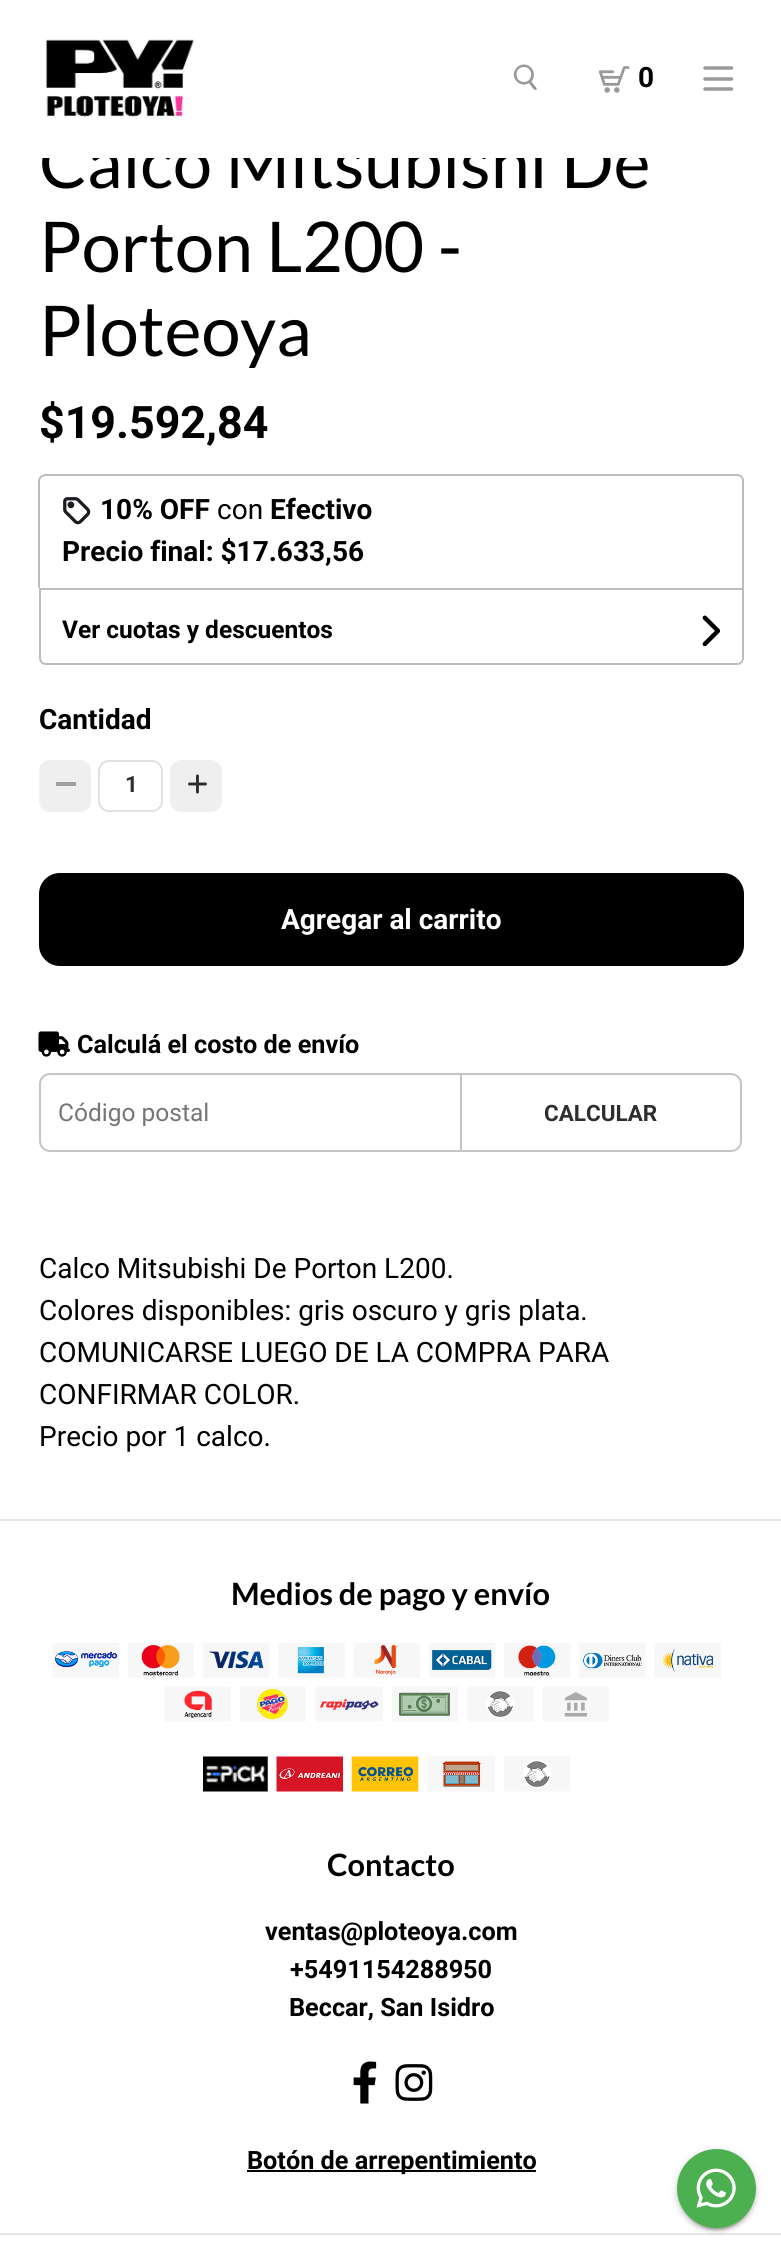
import math
import cairo

surface = cairo.ImageSurface(cairo.FORMAT_RGB24, 781, 2253)
ctx = cairo.Context(surface)
options = cairo.FontOptions()
options.set_hint_metrics(cairo.HINT_METRICS_OFF)
options.set_hint_style(cairo.HINT_STYLE_NONE)
ctx.set_font_options(options)
ctx.set_miter_limit(4)


def round_rect(x, y, w, h, r):
    ctx.new_sub_path()
    for i, (u, v) in enumerate([(x + w - r, y + h - r), (x + r, y + h - r), (x + r, y + r), (x + w - r, y + r)]):
        ctx.arc(u, v, r, i * math.pi / 2, (i + 1) * math.pi / 2)
    ctx.close_path()


def shadow(x, y, w, h, r, blur, alpha):
    ctx.push_group_with_content(cairo.CONTENT_ALPHA)
    ctx.set_operator(cairo.OPERATOR_SOURCE)
    for i in range(15, -16, -2):
        e = blur * i / 6
        if min(w, h) + 2 * e > 0:
            ctx.set_source_rgba(0, 0, 0, alpha * math.erfc((i - 1) / 8.5) / 2)
            round_rect(x - e, y - e, w + 2 * e, h + 2 * e, max(0, min(r + e + blur * .6, min(w, h) / 2 + e)))
            ctx.fill()
    ctx.mask(ctx.pop_group())


def picture(path, x, y, w, h):
    ctx.save()
    ctx.set_source_surface(cairo.ImageSurface.create_from_png(path), x, y)
    ctx.rectangle(x, y, w, h)
    ctx.fill()
    ctx.restore()


ctx.set_source_rgb(1, 1, 1)
ctx.paint()
ctx.select_font_face("Lato")
ctx.set_font_size(70)
ctx.set_source_rgb(0, 0, 0)
ctx.move_to(39, 188)
ctx.show_text("Calco Mitsubishi De")
ctx.set_source_rgb(1, 1, 1)
ctx.rectangle(42, 136, 603, 22)
ctx.fill()
picture("img1.png", 45, 39, 149, 79)
ctx.set_source_rgb(0.6, 0.6, 0.6)
ctx.new_path()
ctx.move_to(524, 64.5)
ctx.curve_to(532.5, 64.5, 537, 75, 531.5, 81.5)
ctx.line_to(534.5, 85.5)
ctx.curve_to(535.5, 86.5, 538, 89, 536, 90)
ctx.curve_to(534, 91, 530, 84.5, 529, 83)
ctx.curve_to(519.5, 89, 508, 76, 517, 67.5)
ctx.curve_to(518.5, 65.5, 521, 64.5, 524, 64.5)
ctx.close_path()
ctx.move_to(524, 67)
ctx.curve_to(514, 67, 514, 82, 524, 82)
ctx.curve_to(533.5, 82, 533.5, 67, 524, 67)
ctx.close_path()
ctx.fill()
picture("img2.png", 598, 66, 32, 27)
ctx.select_font_face("Roboto", cairo.FONT_SLANT_NORMAL, cairo.FONT_WEIGHT_BOLD)
ctx.set_font_size(28)
ctx.set_source_rgb(0, 0, 0)
ctx.move_to(638, 87)
ctx.show_text("0")
ctx.new_path()
ctx.move_to(705, 68)
ctx.line_to(731.5, 68)
ctx.move_to(705, 79)
ctx.line_to(731.5, 79)
ctx.move_to(705, 89)
ctx.line_to(731.5, 89)
ctx.set_source_rgb(0.6, 0.6, 0.6)
ctx.set_line_width(3.5)
ctx.set_line_cap(cairo.LINE_CAP_ROUND)
ctx.set_line_join(cairo.LINE_JOIN_ROUND)
ctx.stroke()
ctx.select_font_face("Lato")
ctx.set_font_size(70)
ctx.set_source_rgb(0, 0, 0)
ctx.move_to(39, 272)
ctx.show_text("Porton L200 -")
ctx.move_to(39, 356)
ctx.show_text("Ploteoya")
ctx.select_font_face("Roboto", cairo.FONT_SLANT_NORMAL, cairo.FONT_WEIGHT_BOLD)
ctx.set_font_size(44.75)
ctx.move_to(39, 438)
ctx.show_text("$19.592,84")
ctx.set_source_rgb(0.741, 0.741, 0.741)
ctx.set_fill_rule(cairo.FILL_RULE_EVEN_ODD)
ctx.new_path()
ctx.move_to(46, 474)
ctx.line_to(737, 474)
ctx.curve_to(741, 474, 744, 477, 744, 481)
ctx.line_to(744, 588)
ctx.line_to(38, 588)
ctx.line_to(38, 481)
ctx.curve_to(38, 477, 42, 474, 46, 474)
ctx.close_path()
ctx.move_to(46, 476)
ctx.line_to(737, 476)
ctx.curve_to(740, 476, 742, 478, 742, 481)
ctx.line_to(742, 588)
ctx.line_to(40, 588)
ctx.line_to(40, 481)
ctx.curve_to(40, 478, 43, 476, 46, 476)
ctx.close_path()
ctx.fill()
picture("img3.png", 63, 497, 28, 28)
ctx.set_font_size(28)
ctx.set_source_rgb(0, 0, 0)
ctx.move_to(100, 519)
ctx.show_text("10% OFF")
ctx.select_font_face("Roboto")
ctx.move_to(217, 519)
ctx.show_text("con")
ctx.select_font_face("Roboto", cairo.FONT_SLANT_NORMAL, cairo.FONT_WEIGHT_BOLD)
ctx.move_to(270, 519)
ctx.show_text("Efectivo")
ctx.move_to(62, 561)
ctx.show_text("Precio final: $17.633,56")
ctx.new_path()
ctx.move_to(40, 589)
ctx.line_to(743, 589)
ctx.line_to(743, 658)
ctx.curve_to(743, 661.5, 740.5, 664, 737, 664)
ctx.line_to(46, 664)
ctx.curve_to(42.5, 664, 40, 661.5, 40, 658)
ctx.close_path()
ctx.set_source_rgb(0.741, 0.741, 0.741)
ctx.set_line_width(2)
ctx.set_line_cap(cairo.LINE_CAP_BUTT)
ctx.set_line_join(cairo.LINE_JOIN_MITER)
ctx.stroke()
ctx.set_font_size(24.5)
ctx.set_source_rgb(0, 0, 0)
ctx.move_to(62, 638)
ctx.show_text("Ver cuotas y descuentos")
picture("img4.png", 702, 615, 19, 32)
ctx.set_font_size(28)
ctx.move_to(39, 729)
ctx.show_text("Cantidad")
ctx.set_source_rgb(0.937, 0.937, 0.937)
round_rect(39, 760, 52, 52, 11)
ctx.fill()
ctx.set_source_rgb(0.624, 0.624, 0.624)
ctx.rectangle(56, 782, 20, 4)
ctx.fill()
round_rect(99, 761, 63, 50, 10)
ctx.set_source_rgb(0.882, 0.882, 0.882)
ctx.stroke()
ctx.set_font_size(22.5)
ctx.set_source_rgb(0.18, 0.18, 0.18)
ctx.move_to(125, 792)
ctx.show_text("1")
ctx.set_source_rgb(0.937, 0.937, 0.937)
round_rect(170, 760, 52, 52, 11)
ctx.fill()
picture("img5.png", 188, 774, 19, 20)
ctx.set_source_rgb(0, 0, 0)
round_rect(39, 873, 705, 93, 21)
ctx.fill()
ctx.set_font_size(28)
ctx.set_source_rgb(1, 1, 1)
ctx.move_to(281, 929)
ctx.show_text("Agregar al carrito")
picture("img6.png", 38, 1031, 32, 26)
ctx.set_font_size(25.25)
ctx.set_source_rgb(0, 0, 0)
ctx.move_to(77, 1053)
ctx.show_text("Calculá el costo de envío")
ctx.new_path()
ctx.move_to(50, 1074)
ctx.line_to(461, 1074)
ctx.line_to(461, 1151)
ctx.line_to(50, 1151)
ctx.curve_to(44.5, 1151, 40, 1146.5, 40, 1141)
ctx.line_to(40, 1084)
ctx.curve_to(40, 1078.5, 44.5, 1074, 50, 1074)
ctx.close_path()
ctx.set_source_rgb(0.769, 0.769, 0.769)
ctx.stroke()
ctx.select_font_face("Roboto")
ctx.set_font_size(24.5)
ctx.set_source_rgb(0.459, 0.459, 0.459)
ctx.move_to(58, 1121)
ctx.show_text("Código postal")
ctx.set_source_rgb(1, 1, 1)
ctx.new_path()
ctx.move_to(461, 1074)
ctx.line_to(731, 1074)
ctx.curve_to(736.5, 1074, 741, 1078.5, 741, 1084)
ctx.line_to(741, 1141)
ctx.curve_to(741, 1146.5, 736.5, 1151, 731, 1151)
ctx.line_to(461, 1151)
ctx.close_path()
ctx.fill_preserve()
ctx.set_source_rgb(0.769, 0.769, 0.769)
ctx.stroke()
ctx.select_font_face("Roboto", cairo.FONT_SLANT_NORMAL, cairo.FONT_WEIGHT_BOLD)
ctx.set_font_size(22.5)
ctx.set_source_rgb(0.18, 0.18, 0.18)
ctx.move_to(544, 1121)
ctx.show_text("CALCULAR")
ctx.select_font_face("Roboto")
ctx.set_font_size(28)
ctx.set_source_rgb(0, 0, 0)
ctx.move_to(39, 1278)
ctx.show_text("Calco Mitsubishi De Porton L200.")
ctx.move_to(39, 1320)
ctx.show_text("Colores disponibles: gris oscuro y gris plata.")
ctx.move_to(39, 1362)
ctx.show_text("COMUNICARSE LUEGO DE LA COMPRA PARA")
ctx.move_to(39, 1404)
ctx.show_text("CONFIRMAR COLOR.")
ctx.move_to(39, 1446)
ctx.show_text("Precio por 1 calco.")
ctx.set_source_rgb(0.902, 0.902, 0.902)
ctx.rectangle(0, 1519, 781, 2)
ctx.fill()
ctx.select_font_face("Lato", cairo.FONT_SLANT_NORMAL, cairo.FONT_WEIGHT_BOLD)
ctx.set_font_size(30.75)
ctx.set_source_rgb(0, 0, 0)
ctx.move_to(231, 1605)
ctx.show_text("Medios de pago y envío")
picture("img7.png", 52, 1643, 67, 35)
picture("img8.png", 128, 1643, 66, 35)
picture("img9.png", 203, 1643, 67, 35)
picture("img10.png", 278, 1643, 67, 35)
picture("img11.png", 353, 1643, 67, 35)
picture("img12.png", 429, 1643, 66, 35)
picture("img13.png", 504, 1643, 67, 35)
picture("img14.png", 579, 1643, 67, 35)
picture("img15.png", 654, 1643, 67, 35)
picture("img16.png", 164, 1686, 67, 36)
picture("img17.png", 240, 1686, 66, 36)
picture("img18.png", 315, 1686, 68, 36)
picture("img19.png", 392, 1686, 67, 36)
picture("img20.png", 467, 1686, 67, 36)
picture("img21.png", 542, 1686, 67, 36)
picture("img22.png", 203, 1756, 65, 36)
picture("img23.png", 276, 1756, 67, 36)
picture("img24.png", 351, 1756, 68, 36)
picture("img25.png", 427, 1756, 68, 36)
picture("img26.png", 504, 1756, 67, 36)
ctx.move_to(327, 1876)
ctx.show_text("Contacto")
ctx.select_font_face("Roboto", cairo.FONT_SLANT_NORMAL, cairo.FONT_WEIGHT_BOLD)
ctx.set_font_size(25.25)
ctx.move_to(265, 1940)
ctx.show_text("ventas@ploteoya.com")
ctx.move_to(290, 1978)
ctx.show_text("+5491154288950")
ctx.move_to(289, 2016)
ctx.show_text("Beccar, San Isidro")
picture("img27.png", 353, 2061, 24, 43)
picture("img28.png", 395, 2064, 38, 37)
ctx.rectangle(247, 2170, 289, 2)
ctx.fill()
ctx.move_to(247, 2169)
ctx.show_text("Botón de arrepentimiento")
ctx.set_source_rgb(0.902, 0.902, 0.902)
ctx.rectangle(0, 2233, 781, 2)
ctx.fill()
ctx.set_source_rgb(0, 0, 0)
shadow(681, 2158, 72, 72, 36, 1, 0.2)
shadow(677, 2151, 79, 79, 39.5, 4.5, 0.12)
shadow(677, 2153, 79, 78, 39, 2, 0.14)
ctx.set_source_rgb(0.298, 0.686, 0.314)
ctx.arc(716.5, 2188.5, 39.5, 0, 2 * math.pi)
ctx.fill()
picture("img29.png", 696, 2168, 40, 40)
surface.write_to_png("page.png")
